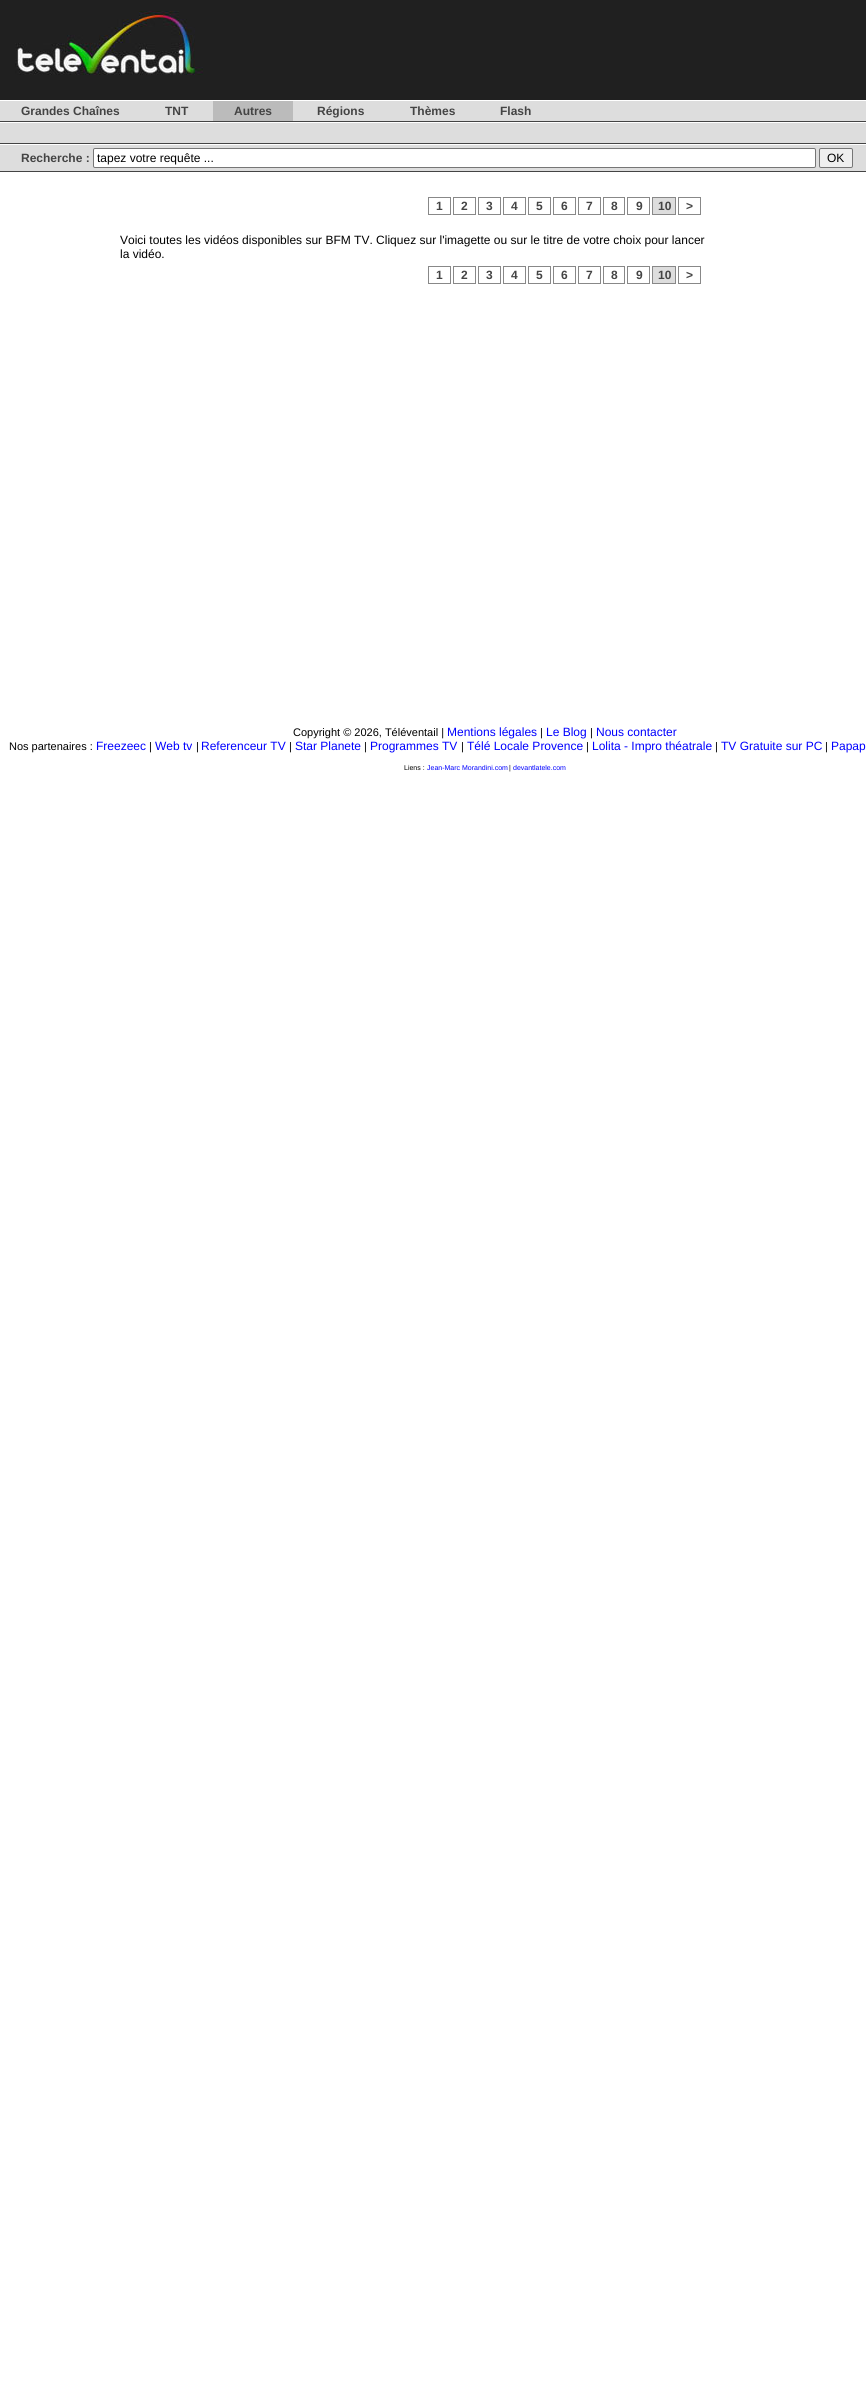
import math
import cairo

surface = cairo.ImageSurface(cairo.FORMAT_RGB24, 866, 2406)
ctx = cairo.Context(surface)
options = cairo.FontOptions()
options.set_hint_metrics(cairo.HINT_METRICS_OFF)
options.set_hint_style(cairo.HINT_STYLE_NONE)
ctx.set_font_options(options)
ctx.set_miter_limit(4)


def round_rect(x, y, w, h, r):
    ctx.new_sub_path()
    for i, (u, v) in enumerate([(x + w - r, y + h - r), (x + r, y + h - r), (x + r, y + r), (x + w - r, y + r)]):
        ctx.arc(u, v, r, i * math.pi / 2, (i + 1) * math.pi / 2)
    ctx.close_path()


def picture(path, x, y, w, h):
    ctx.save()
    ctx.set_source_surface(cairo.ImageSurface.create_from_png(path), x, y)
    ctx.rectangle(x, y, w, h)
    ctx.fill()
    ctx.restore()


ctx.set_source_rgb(1, 1, 1)
ctx.paint()
ctx.set_source_rgb(0.125, 0.125, 0.125)
ctx.rectangle(0, 0, 866, 100)
ctx.fill()
picture("img1.png", 15, 11, 188, 64)
ctx.set_source_rgb(0.867, 0.867, 0.867)
ctx.rectangle(0, 101, 866, 20)
ctx.fill()
ctx.set_source_rgb(0.267, 0.267, 0.267)
ctx.rectangle(0, 121, 866, 1)
ctx.fill()
ctx.select_font_face("Liberation Sans", cairo.FONT_SLANT_NORMAL, cairo.FONT_WEIGHT_BOLD)
ctx.set_font_size(12)
ctx.move_to(21, 115)
ctx.show_text("Grandes Chaînes")
ctx.move_to(165, 115)
ctx.show_text("TNT")
ctx.set_source_rgb(0.733, 0.733, 0.733)
ctx.rectangle(213, 101, 80, 20)
ctx.fill()
ctx.set_source_rgb(0.267, 0.267, 0.267)
ctx.move_to(234, 115)
ctx.show_text("Autres")
ctx.move_to(317, 115)
ctx.show_text("Régions")
ctx.move_to(410, 115)
ctx.show_text("Thèmes")
ctx.move_to(500, 115)
ctx.show_text("Flash")
ctx.set_source_rgb(0.867, 0.867, 0.867)
ctx.rectangle(0, 123, 866, 20)
ctx.fill()
ctx.set_source_rgb(0.267, 0.267, 0.267)
ctx.rectangle(0, 143, 866, 1)
ctx.fill()
ctx.set_source_rgb(0.867, 0.867, 0.867)
ctx.rectangle(0, 145, 866, 26)
ctx.fill()
ctx.set_source_rgb(0.267, 0.267, 0.267)
ctx.rectangle(0, 171, 866, 1)
ctx.fill()
ctx.move_to(21, 162)
ctx.show_text("Recherche :")
ctx.set_source_rgb(1, 1, 1)
round_rect(93.5, 148.5, 722, 19, 1.5)
ctx.fill_preserve()
ctx.set_source_rgb(0.463, 0.463, 0.463)
ctx.set_line_width(1)
ctx.stroke()
ctx.select_font_face("Liberation Sans")
ctx.set_source_rgb(0, 0, 0)
ctx.move_to(97, 162)
ctx.show_text("tapez votre requête ...")
ctx.set_source_rgb(0.937, 0.937, 0.937)
round_rect(819.5, 148.5, 33, 19, 1.5)
ctx.fill_preserve()
ctx.set_source_rgb(0.463, 0.463, 0.463)
ctx.stroke()
ctx.set_source_rgb(0, 0, 0)
ctx.move_to(827, 162)
ctx.show_text("OK")
ctx.rectangle(428.5, 197.5, 22, 17)
ctx.set_source_rgb(0.533, 0.533, 0.533)
ctx.stroke()
ctx.select_font_face("Liberation Sans", cairo.FONT_SLANT_NORMAL, cairo.FONT_WEIGHT_BOLD)
ctx.set_source_rgb(0.267, 0.267, 0.267)
ctx.move_to(436, 210)
ctx.show_text("1")
ctx.rectangle(453.5, 197.5, 22, 17)
ctx.set_source_rgb(0.533, 0.533, 0.533)
ctx.stroke()
ctx.set_source_rgb(0.267, 0.267, 0.267)
ctx.move_to(461, 210)
ctx.show_text("2")
ctx.rectangle(478.5, 197.5, 22, 17)
ctx.set_source_rgb(0.533, 0.533, 0.533)
ctx.stroke()
ctx.set_source_rgb(0.267, 0.267, 0.267)
ctx.move_to(486, 210)
ctx.show_text("3")
ctx.rectangle(503.5, 197.5, 22, 17)
ctx.set_source_rgb(0.533, 0.533, 0.533)
ctx.stroke()
ctx.set_source_rgb(0.267, 0.267, 0.267)
ctx.move_to(511, 210)
ctx.show_text("4")
ctx.rectangle(528.5, 197.5, 22, 17)
ctx.set_source_rgb(0.533, 0.533, 0.533)
ctx.stroke()
ctx.set_source_rgb(0.267, 0.267, 0.267)
ctx.move_to(536, 210)
ctx.show_text("5")
ctx.rectangle(553.5, 197.5, 22, 17)
ctx.set_source_rgb(0.533, 0.533, 0.533)
ctx.stroke()
ctx.set_source_rgb(0.267, 0.267, 0.267)
ctx.move_to(561, 210)
ctx.show_text("6")
ctx.rectangle(578.5, 197.5, 22, 17)
ctx.set_source_rgb(0.533, 0.533, 0.533)
ctx.stroke()
ctx.set_source_rgb(0.267, 0.267, 0.267)
ctx.move_to(586, 210)
ctx.show_text("7")
ctx.rectangle(603.5, 197.5, 21, 17)
ctx.set_source_rgb(0.533, 0.533, 0.533)
ctx.stroke()
ctx.set_source_rgb(0.267, 0.267, 0.267)
ctx.move_to(611, 210)
ctx.show_text("8")
ctx.rectangle(627.5, 197.5, 22, 17)
ctx.set_source_rgb(0.533, 0.533, 0.533)
ctx.stroke()
ctx.set_source_rgb(0.267, 0.267, 0.267)
ctx.move_to(636, 210)
ctx.show_text("9")
ctx.set_source_rgb(0.867, 0.867, 0.867)
ctx.rectangle(652.5, 197.5, 23, 17)
ctx.fill_preserve()
ctx.set_source_rgb(0.533, 0.533, 0.533)
ctx.stroke()
ctx.set_source_rgb(0.267, 0.267, 0.267)
ctx.move_to(658, 210)
ctx.show_text("10")
ctx.rectangle(678.5, 197.5, 22, 17)
ctx.set_source_rgb(0.533, 0.533, 0.533)
ctx.stroke()
ctx.set_source_rgb(0.267, 0.267, 0.267)
ctx.move_to(686, 210)
ctx.show_text(">")
ctx.select_font_face("Liberation Sans")
ctx.set_source_rgb(0, 0, 0)
ctx.move_to(120, 244)
ctx.show_text("Voici toutes les vidéos disponibles sur BFM TV. Cliquez sur l'imagette ou sur le titre de votre choix pour lancer")
ctx.move_to(120, 258)
ctx.show_text("la vidéo.")
ctx.rectangle(428.5, 266.5, 22, 17)
ctx.set_source_rgb(0.533, 0.533, 0.533)
ctx.stroke()
ctx.select_font_face("Liberation Sans", cairo.FONT_SLANT_NORMAL, cairo.FONT_WEIGHT_BOLD)
ctx.set_source_rgb(0.267, 0.267, 0.267)
ctx.move_to(436, 279)
ctx.show_text("1")
ctx.rectangle(453.5, 266.5, 22, 17)
ctx.set_source_rgb(0.533, 0.533, 0.533)
ctx.stroke()
ctx.set_source_rgb(0.267, 0.267, 0.267)
ctx.move_to(461, 279)
ctx.show_text("2")
ctx.rectangle(478.5, 266.5, 22, 17)
ctx.set_source_rgb(0.533, 0.533, 0.533)
ctx.stroke()
ctx.set_source_rgb(0.267, 0.267, 0.267)
ctx.move_to(486, 279)
ctx.show_text("3")
ctx.rectangle(503.5, 266.5, 22, 17)
ctx.set_source_rgb(0.533, 0.533, 0.533)
ctx.stroke()
ctx.set_source_rgb(0.267, 0.267, 0.267)
ctx.move_to(511, 279)
ctx.show_text("4")
ctx.rectangle(528.5, 266.5, 22, 17)
ctx.set_source_rgb(0.533, 0.533, 0.533)
ctx.stroke()
ctx.set_source_rgb(0.267, 0.267, 0.267)
ctx.move_to(536, 279)
ctx.show_text("5")
ctx.rectangle(553.5, 266.5, 22, 17)
ctx.set_source_rgb(0.533, 0.533, 0.533)
ctx.stroke()
ctx.set_source_rgb(0.267, 0.267, 0.267)
ctx.move_to(561, 279)
ctx.show_text("6")
ctx.rectangle(578.5, 266.5, 22, 17)
ctx.set_source_rgb(0.533, 0.533, 0.533)
ctx.stroke()
ctx.set_source_rgb(0.267, 0.267, 0.267)
ctx.move_to(586, 279)
ctx.show_text("7")
ctx.rectangle(603.5, 266.5, 21, 17)
ctx.set_source_rgb(0.533, 0.533, 0.533)
ctx.stroke()
ctx.set_source_rgb(0.267, 0.267, 0.267)
ctx.move_to(611, 279)
ctx.show_text("8")
ctx.rectangle(627.5, 266.5, 22, 17)
ctx.set_source_rgb(0.533, 0.533, 0.533)
ctx.stroke()
ctx.set_source_rgb(0.267, 0.267, 0.267)
ctx.move_to(636, 279)
ctx.show_text("9")
ctx.set_source_rgb(0.867, 0.867, 0.867)
ctx.rectangle(652.5, 266.5, 23, 17)
ctx.fill_preserve()
ctx.set_source_rgb(0.533, 0.533, 0.533)
ctx.stroke()
ctx.set_source_rgb(0.267, 0.267, 0.267)
ctx.move_to(658, 279)
ctx.show_text("10")
ctx.rectangle(678.5, 266.5, 22, 17)
ctx.set_source_rgb(0.533, 0.533, 0.533)
ctx.stroke()
ctx.set_source_rgb(0.267, 0.267, 0.267)
ctx.move_to(686, 279)
ctx.show_text(">")
ctx.select_font_face("Liberation Sans")
ctx.set_font_size(11)
ctx.set_source_rgb(0, 0, 0)
ctx.move_to(293, 736)
ctx.show_text("Copyright © 2026, Téléventail |")
ctx.set_font_size(12)
ctx.set_source_rgb(0, 0, 1)
ctx.move_to(447, 736)
ctx.show_text("Mentions légales")
ctx.set_font_size(11)
ctx.set_source_rgb(0, 0, 0)
ctx.move_to(540, 736)
ctx.show_text("|")
ctx.set_font_size(12)
ctx.set_source_rgb(0, 0, 1)
ctx.move_to(546, 736)
ctx.show_text("Le Blog")
ctx.set_font_size(11)
ctx.set_source_rgb(0, 0, 0)
ctx.move_to(590, 736)
ctx.show_text("|")
ctx.set_font_size(12)
ctx.set_source_rgb(0, 0, 1)
ctx.move_to(596, 736)
ctx.show_text("Nous contacter")
ctx.set_font_size(11)
ctx.set_source_rgb(0, 0, 0)
ctx.move_to(9, 750)
ctx.show_text("Nos partenaires :")
ctx.set_font_size(12)
ctx.set_source_rgb(0, 0, 1)
ctx.move_to(96, 750)
ctx.show_text("Freezeec")
ctx.set_font_size(11)
ctx.set_source_rgb(0, 0, 0)
ctx.move_to(149, 750)
ctx.show_text("|")
ctx.set_font_size(12)
ctx.set_source_rgb(0, 0, 1)
ctx.move_to(155, 750)
ctx.show_text("Web tv")
ctx.set_font_size(11)
ctx.set_source_rgb(0, 0, 0)
ctx.move_to(196, 750)
ctx.show_text("|")
ctx.set_font_size(12)
ctx.set_source_rgb(0, 0, 1)
ctx.move_to(201, 750)
ctx.show_text("Referenceur TV")
ctx.set_font_size(11)
ctx.set_source_rgb(0, 0, 0)
ctx.move_to(289, 750)
ctx.show_text("|")
ctx.set_font_size(12)
ctx.set_source_rgb(0, 0, 1)
ctx.move_to(295, 750)
ctx.show_text("Star Planete")
ctx.set_font_size(11)
ctx.set_source_rgb(0, 0, 0)
ctx.move_to(364, 750)
ctx.show_text("|")
ctx.set_font_size(12)
ctx.set_source_rgb(0, 0, 1)
ctx.move_to(370, 750)
ctx.show_text("Programmes TV")
ctx.set_font_size(11)
ctx.set_source_rgb(0, 0, 0)
ctx.move_to(461, 750)
ctx.show_text("|")
ctx.set_font_size(12)
ctx.set_source_rgb(0, 0, 1)
ctx.move_to(467, 750)
ctx.show_text("Télé Locale Provence")
ctx.set_font_size(11)
ctx.set_source_rgb(0, 0, 0)
ctx.move_to(586, 750)
ctx.show_text("|")
ctx.set_font_size(12)
ctx.set_source_rgb(0, 0, 1)
ctx.move_to(592, 750)
ctx.show_text("Lolita - Impro théatrale")
ctx.set_font_size(11)
ctx.set_source_rgb(0, 0, 0)
ctx.move_to(715, 750)
ctx.show_text("|")
ctx.set_font_size(12)
ctx.set_source_rgb(0, 0, 1)
ctx.move_to(721, 750)
ctx.show_text("TV Gratuite sur PC")
ctx.set_font_size(11)
ctx.set_source_rgb(0, 0, 0)
ctx.move_to(825, 750)
ctx.show_text("|")
ctx.set_font_size(12)
ctx.set_source_rgb(0, 0, 1)
ctx.move_to(831, 750)
ctx.show_text("Papap")
ctx.set_font_size(7)
ctx.set_source_rgb(0, 0, 0)
ctx.move_to(404, 770)
ctx.show_text("Liens :")
ctx.set_source_rgb(0, 0, 1)
ctx.move_to(427, 770)
ctx.show_text("Jean-Marc Morandini.com")
ctx.set_source_rgb(0, 0, 0)
ctx.move_to(509, 770)
ctx.show_text("|")
ctx.set_source_rgb(0, 0, 1)
ctx.move_to(513, 770)
ctx.show_text("devantlatele.com")
surface.write_to_png("page.png")
